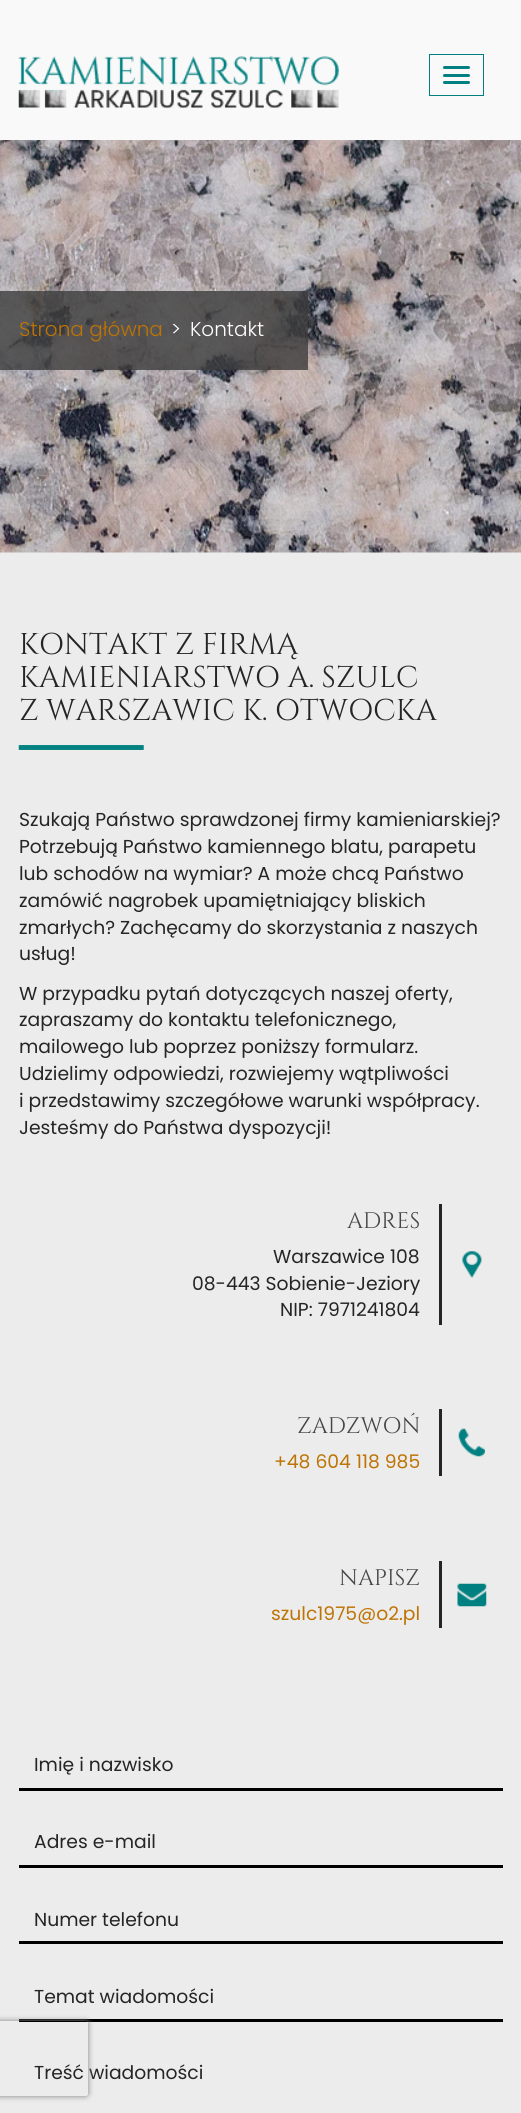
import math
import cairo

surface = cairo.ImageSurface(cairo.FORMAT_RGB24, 521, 2113)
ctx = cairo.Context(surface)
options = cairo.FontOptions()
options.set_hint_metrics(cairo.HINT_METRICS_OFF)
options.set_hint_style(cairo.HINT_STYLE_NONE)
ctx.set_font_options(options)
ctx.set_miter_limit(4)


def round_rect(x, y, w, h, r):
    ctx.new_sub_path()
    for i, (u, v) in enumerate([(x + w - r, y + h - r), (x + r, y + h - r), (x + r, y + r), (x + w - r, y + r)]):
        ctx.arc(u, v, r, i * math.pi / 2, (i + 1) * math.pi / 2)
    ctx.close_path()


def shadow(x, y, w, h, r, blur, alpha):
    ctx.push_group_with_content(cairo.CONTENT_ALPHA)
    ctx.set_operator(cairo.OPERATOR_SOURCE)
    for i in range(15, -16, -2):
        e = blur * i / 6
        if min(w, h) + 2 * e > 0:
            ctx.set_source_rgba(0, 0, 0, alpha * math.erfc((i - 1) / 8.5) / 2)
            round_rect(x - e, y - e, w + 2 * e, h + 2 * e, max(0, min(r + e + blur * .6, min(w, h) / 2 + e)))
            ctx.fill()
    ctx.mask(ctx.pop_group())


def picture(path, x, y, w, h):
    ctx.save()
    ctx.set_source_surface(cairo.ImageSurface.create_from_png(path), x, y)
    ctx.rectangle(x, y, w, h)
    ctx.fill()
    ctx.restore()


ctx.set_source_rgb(0.922, 0.922, 0.922)
ctx.paint()
ctx.set_source_rgb(0.976, 0.976, 0.976)
ctx.rectangle(0, 0, 521, 140)
ctx.fill()
picture("img1.png", 18, 56, 321, 53)
ctx.rectangle(429.5, 54.5, 54, 41)
ctx.set_source_rgb(0, 0.502, 0.502)
ctx.set_line_width(1)
ctx.stroke()
round_rect(443, 66, 27, 3, 1.5)
ctx.fill()
round_rect(443, 74, 27, 3, 1.5)
ctx.fill()
round_rect(443, 81, 27, 3, 1.5)
ctx.fill()
picture("img2.png", 0, 140, 521, 413)
ctx.set_source_rgba(0.239, 0.239, 0.239, 0.8)
ctx.rectangle(0, 291, 308, 79)
ctx.fill()
ctx.select_font_face("Poppins Light")
ctx.set_font_size(20)
ctx.set_source_rgb(0.745, 0.455, 0.02)
ctx.move_to(19, 336)
ctx.show_text("Strona główna")
ctx.set_source_rgb(1, 1, 1)
ctx.move_to(171, 336)
ctx.show_text(">")
ctx.move_to(190, 336)
ctx.show_text("Kontakt")
ctx.select_font_face("Cinzel")
ctx.set_font_size(30)
ctx.set_source_rgb(0.145, 0.145, 0.145)
ctx.move_to(19, 654)
ctx.show_text("KONTAKT Z FIRMĄ")
ctx.move_to(19, 687)
ctx.show_text("KAMIENIARSTWO A. SZULC")
ctx.move_to(19, 720)
ctx.show_text("Z WARSZAWIC K. OTWOCKA")
picture("img3.png", 18, 745, 126, 5)
ctx.select_font_face("Poppins")
ctx.set_font_size(18.75)
ctx.move_to(19, 826)
ctx.show_text("Szukają Państwo sprawdzonej firmy kamieniarskiej?")
ctx.move_to(19, 853)
ctx.show_text("Potrzebują Państwo kamiennego blatu, parapetu")
ctx.move_to(19, 880)
ctx.show_text("lub schodów na wymiar? A może chcą Państwo")
ctx.move_to(19, 907)
ctx.show_text("zamówić nagrobek upamiętniający bliskich")
ctx.move_to(19, 934)
ctx.show_text("zmarłych? Zachęcamy do skorzystania z naszych")
ctx.move_to(19, 960)
ctx.show_text("usług!")
ctx.move_to(19, 1000)
ctx.show_text("W przypadku pytań dotyczących naszej oferty,")
ctx.move_to(19, 1026)
ctx.show_text("zapraszamy do kontaktu telefonicznego,")
ctx.move_to(19, 1053)
ctx.show_text("mailowego lub poprzez poniższy formularz.")
ctx.move_to(19, 1080)
ctx.show_text("Udzielimy odpowiedzi, rozwiejemy wątpliwości")
ctx.move_to(19, 1107)
ctx.show_text("i przedstawimy szczegółowe warunki współpracy.")
ctx.move_to(19, 1134)
ctx.show_text("Jesteśmy do Państwa dyspozycji!")
ctx.rectangle(439, 1204, 3, 121)
ctx.fill()
ctx.select_font_face("Cinzel")
ctx.set_font_size(22.5)
ctx.set_source_rgb(0.271, 0.271, 0.271)
ctx.move_to(347, 1228)
ctx.show_text("ADRES")
ctx.select_font_face("Poppins")
ctx.set_font_size(18.75)
ctx.set_source_rgb(0.145, 0.145, 0.145)
ctx.move_to(273, 1263)
ctx.show_text("Warszawice 108")
ctx.move_to(192, 1290)
ctx.show_text("08-443 Sobienie-Jeziory")
ctx.move_to(280, 1316)
ctx.show_text("NIP: 7971241804")
picture("img4.png", 462, 1251, 20, 27)
ctx.rectangle(439, 1409, 3, 67)
ctx.fill()
ctx.select_font_face("Cinzel")
ctx.set_font_size(22.5)
ctx.set_source_rgb(0.271, 0.271, 0.271)
ctx.move_to(297, 1433)
ctx.show_text("ZADZWOŃ")
ctx.select_font_face("Poppins")
ctx.set_font_size(18.75)
ctx.set_source_rgb(0.745, 0.455, 0.02)
ctx.move_to(274, 1468)
ctx.show_text("+48 604 118 985")
picture("img5.png", 458, 1428, 27, 29)
ctx.set_source_rgb(0.145, 0.145, 0.145)
ctx.rectangle(439, 1561, 3, 67)
ctx.fill()
ctx.select_font_face("Cinzel")
ctx.set_font_size(22.5)
ctx.set_source_rgb(0.271, 0.271, 0.271)
ctx.move_to(339, 1585)
ctx.show_text("NAPISZ")
ctx.select_font_face("Poppins")
ctx.set_font_size(18.75)
ctx.set_source_rgb(0.745, 0.455, 0.02)
ctx.move_to(271, 1620)
ctx.show_text("szulc1975@o2.pl")
picture("img6.png", 457, 1583, 30, 24)
ctx.set_source_rgb(0, 0, 0)
ctx.rectangle(19, 1788, 484, 3)
ctx.fill()
ctx.set_source_rgb(0.145, 0.145, 0.145)
ctx.move_to(34, 1771)
ctx.show_text("Imię i nazwisko")
ctx.set_source_rgb(0, 0, 0)
ctx.rectangle(19, 1865, 484, 3)
ctx.fill()
ctx.set_source_rgb(0.145, 0.145, 0.145)
ctx.move_to(34, 1848)
ctx.show_text("Adres e-mail")
ctx.set_source_rgb(0, 0, 0)
ctx.rectangle(19, 1941, 484, 3)
ctx.fill()
ctx.set_source_rgb(0.145, 0.145, 0.145)
ctx.move_to(34, 1926)
ctx.show_text("Numer telefonu")
ctx.set_source_rgb(0, 0, 0)
ctx.rectangle(19, 2019, 484, 3)
ctx.fill()
ctx.set_source_rgb(0.145, 0.145, 0.145)
ctx.move_to(34, 2003)
ctx.show_text("Temat wiadomości")
ctx.move_to(34, 2079)
ctx.show_text("Treść wiadomości")
ctx.save()
ctx.set_fill_rule(cairo.FILL_RULE_EVEN_ODD)
ctx.new_path()
ctx.move_to(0, 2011)
ctx.line_to(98, 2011)
ctx.line_to(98, 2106)
ctx.line_to(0, 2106)
ctx.close_path()
ctx.move_to(-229.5, 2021)
ctx.line_to(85.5, 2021)
ctx.curve_to(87, 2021, 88, 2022, 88, 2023.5)
ctx.line_to(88, 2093.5)
ctx.curve_to(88, 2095, 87, 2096, 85.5, 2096)
ctx.line_to(-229.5, 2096)
ctx.curve_to(-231, 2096, -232, 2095, -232, 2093.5)
ctx.line_to(-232, 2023.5)
ctx.curve_to(-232, 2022, -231, 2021, -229.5, 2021)
ctx.close_path()
ctx.clip()
ctx.set_source_rgb(0.502, 0.502, 0.502)
shadow(-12, 2021, 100, 75, 2.5, 3, 1)
ctx.restore()
surface.write_to_png("page.png")
